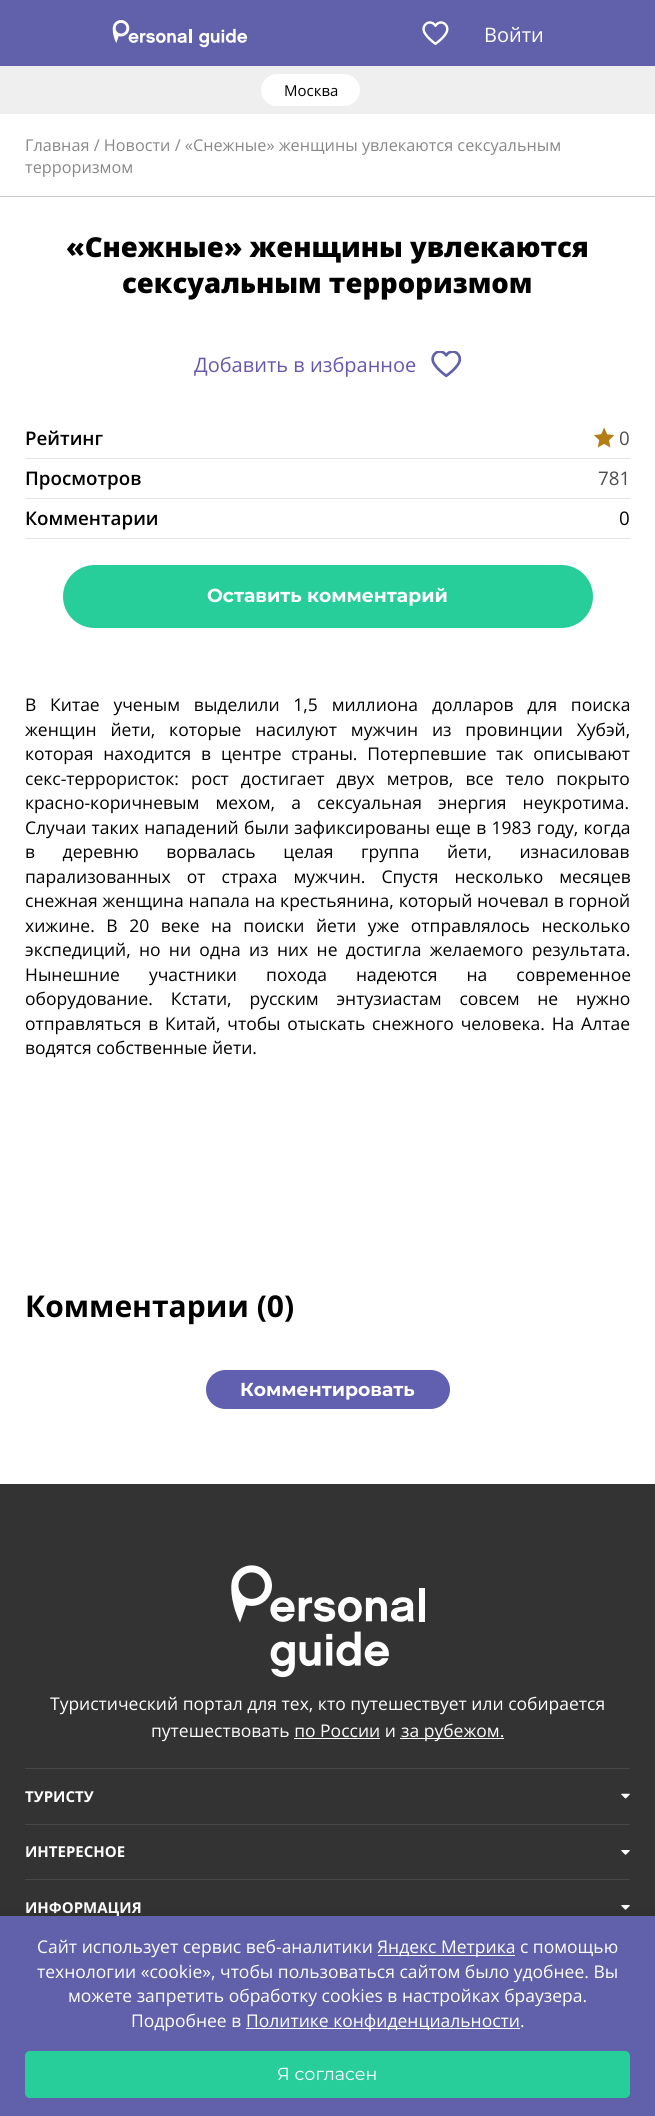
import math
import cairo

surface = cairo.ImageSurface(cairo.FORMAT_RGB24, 655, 2116)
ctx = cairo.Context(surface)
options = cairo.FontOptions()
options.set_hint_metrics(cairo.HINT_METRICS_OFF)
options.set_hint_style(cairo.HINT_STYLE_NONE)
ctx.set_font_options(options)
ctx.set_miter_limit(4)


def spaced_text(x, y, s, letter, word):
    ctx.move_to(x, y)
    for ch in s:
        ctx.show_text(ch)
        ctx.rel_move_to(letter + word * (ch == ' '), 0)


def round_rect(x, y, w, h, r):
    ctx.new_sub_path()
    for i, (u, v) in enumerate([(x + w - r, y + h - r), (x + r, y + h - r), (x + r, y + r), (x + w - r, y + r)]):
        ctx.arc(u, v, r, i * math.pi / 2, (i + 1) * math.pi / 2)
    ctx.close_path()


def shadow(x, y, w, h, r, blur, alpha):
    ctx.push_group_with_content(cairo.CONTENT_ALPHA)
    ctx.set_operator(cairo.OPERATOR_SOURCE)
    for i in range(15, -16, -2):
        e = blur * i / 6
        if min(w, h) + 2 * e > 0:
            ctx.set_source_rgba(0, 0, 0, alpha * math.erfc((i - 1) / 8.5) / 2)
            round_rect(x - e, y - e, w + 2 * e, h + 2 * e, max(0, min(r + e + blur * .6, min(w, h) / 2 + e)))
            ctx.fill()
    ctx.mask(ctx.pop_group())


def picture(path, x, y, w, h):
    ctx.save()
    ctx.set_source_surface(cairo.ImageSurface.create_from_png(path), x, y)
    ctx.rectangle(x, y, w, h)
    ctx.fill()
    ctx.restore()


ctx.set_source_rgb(1, 1, 1)
ctx.paint()
ctx.set_source_rgb(0.376, 0.38, 0.667)
ctx.rectangle(0, 0, 655, 66)
ctx.fill()
picture("img1.png", 112, 20, 136, 28)
picture("img2.png", 422, 21, 27, 24)
ctx.select_font_face("Open Sans")
ctx.set_font_size(20)
ctx.set_source_rgb(1, 1, 1)
ctx.move_to(484, 42)
ctx.show_text("Войти")
ctx.set_source_rgb(0.937, 0.937, 0.937)
ctx.rectangle(0, 66, 655, 48)
ctx.fill()
ctx.set_source_rgb(1, 1, 1)
round_rect(261, 74, 99, 32, 16)
ctx.fill()
ctx.set_font_size(15)
ctx.set_source_rgb(0, 0, 0)
ctx.move_to(284, 96)
ctx.show_text("Москва")
ctx.set_font_size(16.25)
ctx.set_source_rgb(0.533, 0.533, 0.533)
ctx.move_to(25, 151)
ctx.show_text("Главная / Новости / «Снежные» женщины увлекаются сексуальным")
ctx.move_to(25, 173)
ctx.show_text("терроризмом")
ctx.set_source_rgb(0.788, 0.788, 0.788)
ctx.rectangle(0, 196, 655, 1)
ctx.fill()
ctx.select_font_face("Open Sans ExtraBold")
ctx.set_font_size(27.5)
ctx.set_source_rgb(0, 0, 0)
ctx.move_to(66, 257)
ctx.show_text("«Снежные» женщины увлекаются")
ctx.move_to(122, 293)
ctx.show_text("сексуальным терроризмом")
picture("img3.png", 431, 351, 30, 27)
ctx.select_font_face("Open Sans")
ctx.set_font_size(20)
ctx.set_source_rgb(0.412, 0.341, 0.682)
ctx.move_to(194, 372)
ctx.show_text("Добавить в избранное")
ctx.set_source_rgb(0.898, 0.898, 0.898)
ctx.rectangle(25, 458, 606, 1)
ctx.fill()
ctx.select_font_face("Open Sans SemiBold")
ctx.set_font_size(18.75)
ctx.set_source_rgb(0, 0, 0)
ctx.move_to(25, 445)
ctx.show_text("Рейтинг")
picture("img4.png", 594, 427, 21, 21)
ctx.select_font_face("Open Sans")
ctx.set_source_rgb(0.302, 0.302, 0.302)
ctx.move_to(619, 445)
ctx.show_text("0")
ctx.set_source_rgb(0.898, 0.898, 0.898)
ctx.rectangle(25, 498, 606, 1)
ctx.fill()
ctx.select_font_face("Open Sans SemiBold")
ctx.set_source_rgb(0, 0, 0)
ctx.move_to(25, 485)
ctx.show_text("Просмотров")
ctx.select_font_face("Open Sans")
ctx.set_source_rgb(0.302, 0.302, 0.302)
ctx.move_to(598, 485)
ctx.show_text("781")
ctx.set_source_rgb(0.898, 0.898, 0.898)
ctx.rectangle(25, 538, 606, 1)
ctx.fill()
ctx.select_font_face("Open Sans SemiBold")
ctx.set_source_rgb(0, 0, 0)
ctx.move_to(25, 525)
ctx.show_text("Комментарии")
ctx.select_font_face("Open Sans")
ctx.move_to(619, 525)
ctx.show_text("0")
ctx.set_source_rgb(0.157, 0.808, 0.6)
round_rect(63, 565, 530, 63, 31.5)
ctx.fill()
ctx.select_font_face("Montserrat", cairo.FONT_SLANT_NORMAL, cairo.FONT_WEIGHT_BOLD)
ctx.set_source_rgb(1, 1, 1)
ctx.move_to(207, 602)
ctx.show_text("Оставить комментарий")
ctx.select_font_face("Open Sans")
ctx.set_font_size(17.5)
ctx.set_source_rgb(0, 0, 0)
spaced_text(25, 711, "В Китае ученым выделили 1,5 миллиона долларов для поиска", 0, 9.25)
spaced_text(25, 736, "женщин йети, которые насилуют мужчин из провинции Хубэй,", 0, 9.25)
spaced_text(25, 760, "которая находится в центре страны. Потерпевшие так описывают", 0, 5.25)
spaced_text(25, 785, "секс-террористок: рост достигает двух метров, все тело покрыто", 0, 7.5)
spaced_text(25, 809, "красно-коричневым мехом, а сексуальная энергия неукротима.", 0, 11.5)
spaced_text(25, 834, "Случаи таких нападений были зафиксированы еще в 1983 году, когда", 0, 0.75)
spaced_text(25, 858, "в деревню ворвалась целая группа йети, изнасиловав", 0, 23)
spaced_text(25, 883, "парализованных от страха мужчин. Спустя несколько месяцев", 0, 11.5)
spaced_text(25, 907, "снежная женщина напала на крестьянина, который ночевал в горной", 0, 0.25)
spaced_text(25, 932, "хижине. В 20 веке на поиски йети уже отправлялось несколько", 0, 7)
spaced_text(25, 956, "экспедиций, но ни одна из них не достигла желаемого результата.", 0, 3.75)
spaced_text(25, 981, "Нынешние участники похода надеются на современное", 0, 24.5)
spaced_text(25, 1005, "оборудование. Кстати, русским энтузиастам совсем не нужно", 0, 13.25)
spaced_text(25, 1030, "отправляться в Китай, чтобы отыскать снежного человека. На Алтае", 0, 2.25)
ctx.move_to(25, 1054)
ctx.show_text("водятся собственные йети.")
ctx.select_font_face("Open Sans", cairo.FONT_SLANT_NORMAL, cairo.FONT_WEIGHT_BOLD)
ctx.set_font_size(30)
ctx.move_to(25, 1317)
ctx.show_text("Комментарии (0)")
ctx.set_source_rgb(0.38, 0.373, 0.686)
round_rect(206, 1370, 244, 39, 19.5)
ctx.fill()
ctx.select_font_face("Montserrat", cairo.FONT_SLANT_NORMAL, cairo.FONT_WEIGHT_BOLD)
ctx.set_font_size(18.75)
ctx.set_source_rgb(1, 1, 1)
ctx.move_to(240, 1396)
ctx.show_text("Комментировать")
ctx.set_source_rgb(0.2, 0.2, 0.2)
ctx.rectangle(0, 1484, 655, 432)
ctx.fill()
picture("img5.png", 231, 1565, 194, 113)
ctx.select_font_face("Open Sans")
ctx.set_font_size(17.5)
ctx.set_source_rgb(1, 1, 1)
ctx.move_to(50, 1710)
ctx.show_text("Туристический портал для тех, кто путешествует или собирается")
ctx.move_to(151, 1737)
ctx.show_text("путешествовать по России и")
ctx.rectangle(400, 1738, 104, 1)
ctx.fill()
ctx.move_to(401, 1737)
ctx.show_text("за рубежом.")
ctx.rectangle(294, 1738, 86, 1)
ctx.fill()
ctx.set_source_rgb(0.278, 0.278, 0.278)
ctx.rectangle(25, 1768, 605, 1)
ctx.fill()
ctx.select_font_face("Open Sans", cairo.FONT_SLANT_NORMAL, cairo.FONT_WEIGHT_BOLD)
ctx.set_font_size(15)
ctx.set_source_rgb(1, 1, 1)
ctx.move_to(25, 1802)
ctx.show_text("ТУРИСТУ")
picture("img6.png", 621, 1793, 9, 6)
ctx.set_source_rgb(0.278, 0.278, 0.278)
ctx.rectangle(25, 1824, 605, 1)
ctx.fill()
ctx.set_source_rgb(1, 1, 1)
ctx.move_to(25, 1857)
ctx.show_text("ИНТЕРЕСНОЕ")
picture("img7.png", 621, 1850, 9, 5)
ctx.set_source_rgb(0.278, 0.278, 0.278)
ctx.rectangle(25, 1879, 605, 1)
ctx.fill()
ctx.set_source_rgb(1, 1, 1)
ctx.move_to(25, 1913)
ctx.show_text("ИНФОРМАЦИЯ")
picture("img7.png", 621, 1905, 9, 5)
ctx.set_source_rgb(0, 0, 0)
shadow(0, 1914, 655, 200, 0, 6, 0.1)
ctx.set_source_rgb(0.376, 0.38, 0.667)
ctx.rectangle(0, 1916, 655, 200)
ctx.fill()
ctx.select_font_face("Open Sans")
ctx.set_font_size(17.5)
ctx.set_source_rgb(1, 1, 1)
ctx.move_to(37, 1953)
ctx.show_text("Сайт использует сервис веб-аналитики")
ctx.rectangle(378, 1955, 137, 1)
ctx.fill()
ctx.move_to(377, 1953)
ctx.show_text("Яндекс Метрика с помощью")
ctx.move_to(37, 1978)
ctx.show_text("технологии «cookie», чтобы пользоваться сайтом было удобнее. Вы")
ctx.move_to(68, 2002)
ctx.show_text("можете запретить обработку cookies в настройках браузера.")
ctx.move_to(131, 2027)
ctx.show_text("Подробнее в")
ctx.rectangle(246, 2028, 274, 1)
ctx.fill()
ctx.move_to(246, 2027)
ctx.show_text("Политике конфиденциальности.")
ctx.set_source_rgb(0.157, 0.808, 0.6)
round_rect(25, 2051, 605, 47, 5)
ctx.fill()
ctx.select_font_face("Montserrat")
ctx.set_source_rgb(1, 1, 1)
ctx.move_to(277, 2080)
ctx.show_text("Я согласен")
surface.write_to_png("page.png")
